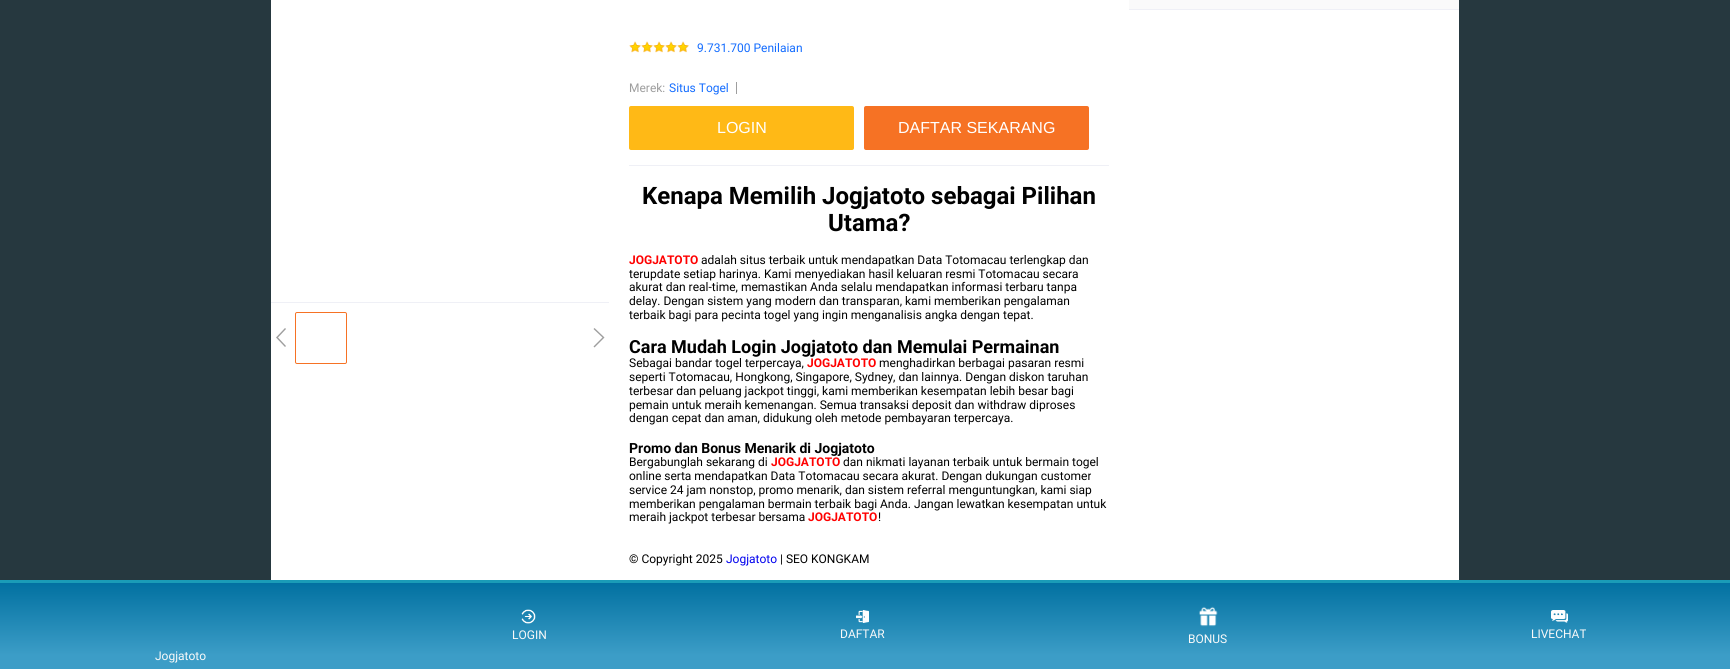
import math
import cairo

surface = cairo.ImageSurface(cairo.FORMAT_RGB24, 1730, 669)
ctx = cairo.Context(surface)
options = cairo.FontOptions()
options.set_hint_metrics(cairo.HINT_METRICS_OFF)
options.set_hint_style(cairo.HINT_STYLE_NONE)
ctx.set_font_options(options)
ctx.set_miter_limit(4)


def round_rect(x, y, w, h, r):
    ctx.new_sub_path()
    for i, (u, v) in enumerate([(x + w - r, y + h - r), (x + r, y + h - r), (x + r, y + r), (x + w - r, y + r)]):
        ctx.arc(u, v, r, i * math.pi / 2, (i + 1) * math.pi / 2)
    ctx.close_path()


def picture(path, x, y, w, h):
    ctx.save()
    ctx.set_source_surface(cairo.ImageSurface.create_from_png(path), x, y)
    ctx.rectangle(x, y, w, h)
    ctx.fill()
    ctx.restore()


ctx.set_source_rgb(0.149, 0.22, 0.247)
ctx.paint()
ctx.set_source_rgb(1, 1, 1)
ctx.rectangle(271, 0, 1188, 580)
ctx.fill()
ctx.set_source_rgb(0.937, 0.941, 0.961)
ctx.rectangle(271, 302, 338, 1)
ctx.fill()
ctx.set_source_rgb(0.62, 0.62, 0.62)
ctx.new_path()
ctx.move_to(286, 346)
ctx.line_to(278, 337.5)
ctx.line_to(286, 329)
ctx.line_to(285, 328)
ctx.line_to(276, 337.5)
ctx.line_to(285, 347)
ctx.close_path()
ctx.fill()
round_rect(295.5, 312.5, 51, 51, 1.5)
ctx.set_source_rgb(0.961, 0.447, 0.141)
ctx.set_line_width(1)
ctx.stroke()
ctx.set_source_rgb(0.62, 0.62, 0.62)
ctx.new_path()
ctx.move_to(594.5, 347.5)
ctx.line_to(593.5, 346.5)
ctx.line_to(602.5, 337.5)
ctx.line_to(593.5, 329)
ctx.line_to(594.5, 328)
ctx.line_to(604.5, 337.5)
ctx.close_path()
ctx.fill()
ctx.set_source_rgb(0.98, 0.98, 0.98)
ctx.rectangle(1129, 0, 330, 9)
ctx.fill()
ctx.set_source_rgb(0.937, 0.941, 0.961)
ctx.rectangle(1129, 9, 330, 1)
ctx.fill()
picture("img1.png", 629, 41, 12, 12)
picture("img1.png", 641, 41, 12, 12)
picture("img1.png", 653, 41, 12, 12)
picture("img1.png", 665, 41, 12, 12)
picture("img1.png", 677, 41, 12, 12)
ctx.select_font_face("Roboto")
ctx.set_font_size(12)
ctx.set_source_rgb(0.075, 0.424, 1)
ctx.move_to(697, 52)
ctx.show_text("9.731.700 Penilaian")
ctx.set_source_rgb(0.937, 0.941, 0.961)
ctx.rectangle(629, 165, 480, 1)
ctx.fill()
ctx.set_source_rgb(0.62, 0.62, 0.62)
ctx.move_to(629, 92)
ctx.show_text("Merek:")
ctx.set_source_rgb(0.075, 0.424, 1)
ctx.move_to(669, 92)
ctx.show_text("Situs Togel")
ctx.set_source_rgb(0.62, 0.62, 0.62)
ctx.rectangle(736, 82, 1, 12)
ctx.fill()
ctx.set_source_rgb(1, 0.725, 0.086)
round_rect(629, 106, 225, 44, 2)
ctx.fill()
ctx.select_font_face("Liberation Sans")
ctx.set_font_size(16)
ctx.set_source_rgb(1, 1, 1)
ctx.move_to(717, 133)
ctx.show_text("LOGIN")
ctx.set_source_rgb(0.961, 0.447, 0.141)
round_rect(864, 106, 225, 44, 2)
ctx.fill()
ctx.set_source_rgb(1, 1, 1)
ctx.move_to(898, 133)
ctx.show_text("DAFTAR SEKARANG")
ctx.select_font_face("Roboto", cairo.FONT_SLANT_NORMAL, cairo.FONT_WEIGHT_BOLD)
ctx.set_font_size(24)
ctx.set_source_rgb(0, 0, 0)
ctx.move_to(642, 204)
ctx.show_text("Kenapa Memilih Jogjatoto sebagai Pilihan")
ctx.move_to(828, 231)
ctx.show_text("Utama?")
ctx.set_font_size(12)
ctx.set_source_rgb(1, 0, 0)
ctx.move_to(629, 264)
ctx.show_text("JOGJATOTO")
ctx.select_font_face("Roboto")
ctx.set_source_rgb(0, 0, 0)
ctx.move_to(701, 264)
ctx.show_text("adalah situs terbaik untuk mendapatkan Data Totomacau terlengkap dan")
ctx.move_to(629, 278)
ctx.show_text("terupdate setiap harinya. Kami menyediakan hasil keluaran resmi Totomacau secara")
ctx.move_to(629, 291)
ctx.show_text("akurat dan real-time, memastikan Anda selalu mendapatkan informasi terbaru tanpa")
ctx.move_to(629, 305)
ctx.show_text("delay. Dengan sistem yang modern dan transparan, kami memberikan pengalaman")
ctx.move_to(629, 319)
ctx.show_text("terbaik bagi para pecinta togel yang ingin menganalisis angka dengan tepat.")
ctx.select_font_face("Roboto", cairo.FONT_SLANT_NORMAL, cairo.FONT_WEIGHT_BOLD)
ctx.set_font_size(18)
ctx.move_to(629, 353)
ctx.show_text("Cara Mudah Login Jogjatoto dan Memulai Permainan")
ctx.select_font_face("Roboto")
ctx.set_font_size(12)
ctx.move_to(629, 367)
ctx.show_text("Sebagai bandar togel terpercaya,")
ctx.select_font_face("Roboto", cairo.FONT_SLANT_NORMAL, cairo.FONT_WEIGHT_BOLD)
ctx.set_source_rgb(1, 0, 0)
ctx.move_to(807, 367)
ctx.show_text("JOGJATOTO")
ctx.select_font_face("Roboto")
ctx.set_source_rgb(0, 0, 0)
ctx.move_to(879, 367)
ctx.show_text("menghadirkan berbagai pasaran resmi")
ctx.move_to(629, 381)
ctx.show_text("seperti Totomacau, Hongkong, Singapore, Sydney, dan lainnya. Dengan diskon taruhan")
ctx.move_to(629, 395)
ctx.show_text("terbesar dan peluang jackpot tinggi, kami memberikan kesempatan lebih besar bagi")
ctx.move_to(629, 409)
ctx.show_text("pemain untuk meraih kemenangan. Semua transaksi deposit dan withdraw diproses")
ctx.move_to(629, 422)
ctx.show_text("dengan cepat dan aman, didukung oleh metode pembayaran terpercaya.")
ctx.select_font_face("Roboto", cairo.FONT_SLANT_NORMAL, cairo.FONT_WEIGHT_BOLD)
ctx.set_font_size(14)
ctx.move_to(629, 453)
ctx.show_text("Promo dan Bonus Menarik di Jogjatoto")
ctx.select_font_face("Roboto")
ctx.set_font_size(12)
ctx.move_to(629, 466)
ctx.show_text("Bergabunglah sekarang di")
ctx.select_font_face("Roboto", cairo.FONT_SLANT_NORMAL, cairo.FONT_WEIGHT_BOLD)
ctx.set_source_rgb(1, 0, 0)
ctx.move_to(771, 466)
ctx.show_text("JOGJATOTO")
ctx.select_font_face("Roboto")
ctx.set_source_rgb(0, 0, 0)
ctx.move_to(843, 466)
ctx.show_text("dan nikmati layanan terbaik untuk bermain togel")
ctx.move_to(629, 480)
ctx.show_text("online serta mendapatkan Data Totomacau secara akurat. Dengan dukungan customer")
ctx.move_to(629, 494)
ctx.show_text("service 24 jam nonstop, promo menarik, dan sistem referral menguntungkan, kami siap")
ctx.move_to(629, 508)
ctx.show_text("memberikan pengalaman bermain terbaik bagi Anda. Jangan lewatkan kesempatan untuk")
ctx.move_to(629, 521)
ctx.show_text("meraih jackpot terbesar bersama")
ctx.select_font_face("Roboto", cairo.FONT_SLANT_NORMAL, cairo.FONT_WEIGHT_BOLD)
ctx.set_source_rgb(1, 0, 0)
ctx.move_to(808, 521)
ctx.show_text("JOGJATOTO")
ctx.select_font_face("Roboto")
ctx.set_source_rgb(0, 0, 0)
ctx.move_to(878, 521)
ctx.show_text("!")
ctx.move_to(629, 563)
ctx.show_text("© Copyright 2025")
ctx.set_source_rgb(0, 0, 0.933)
ctx.move_to(726, 563)
ctx.show_text("Jogjatoto")
ctx.set_source_rgb(0, 0, 0)
ctx.move_to(780, 563)
ctx.show_text("| SEO KONGKAM")
ctx.set_source_rgb(0.102, 0.612, 0.718)
ctx.rectangle(0, 580, 1730, 3)
ctx.fill()
gradient = cairo.LinearGradient(865, 583, 865, 669)
gradient.add_color_stop_rgba(0, 0.008, 0.443, 0.631, 1)
gradient.add_color_stop_rgba(0.84, 0.235, 0.616, 0.78, 1)
ctx.set_source(gradient)
ctx.rectangle(0, 583, 1730, 86)
ctx.fill()
picture("img2.png", 521, 609, 15, 15)
ctx.set_source_rgb(0.973, 0.973, 0.973)
ctx.move_to(512, 639)
ctx.show_text("LOGIN")
picture("img3.png", 856, 610, 13, 13)
ctx.move_to(840, 638)
ctx.show_text("DAFTAR")
picture("img4.png", 1199, 606, 19, 21)
ctx.move_to(1188, 643)
ctx.show_text("BONUS")
picture("img5.png", 1551, 610, 17, 13)
ctx.move_to(1531, 638)
ctx.show_text("LIVECHAT")
ctx.move_to(155, 660)
ctx.show_text("Jogjatoto")
surface.write_to_png("page.png")
